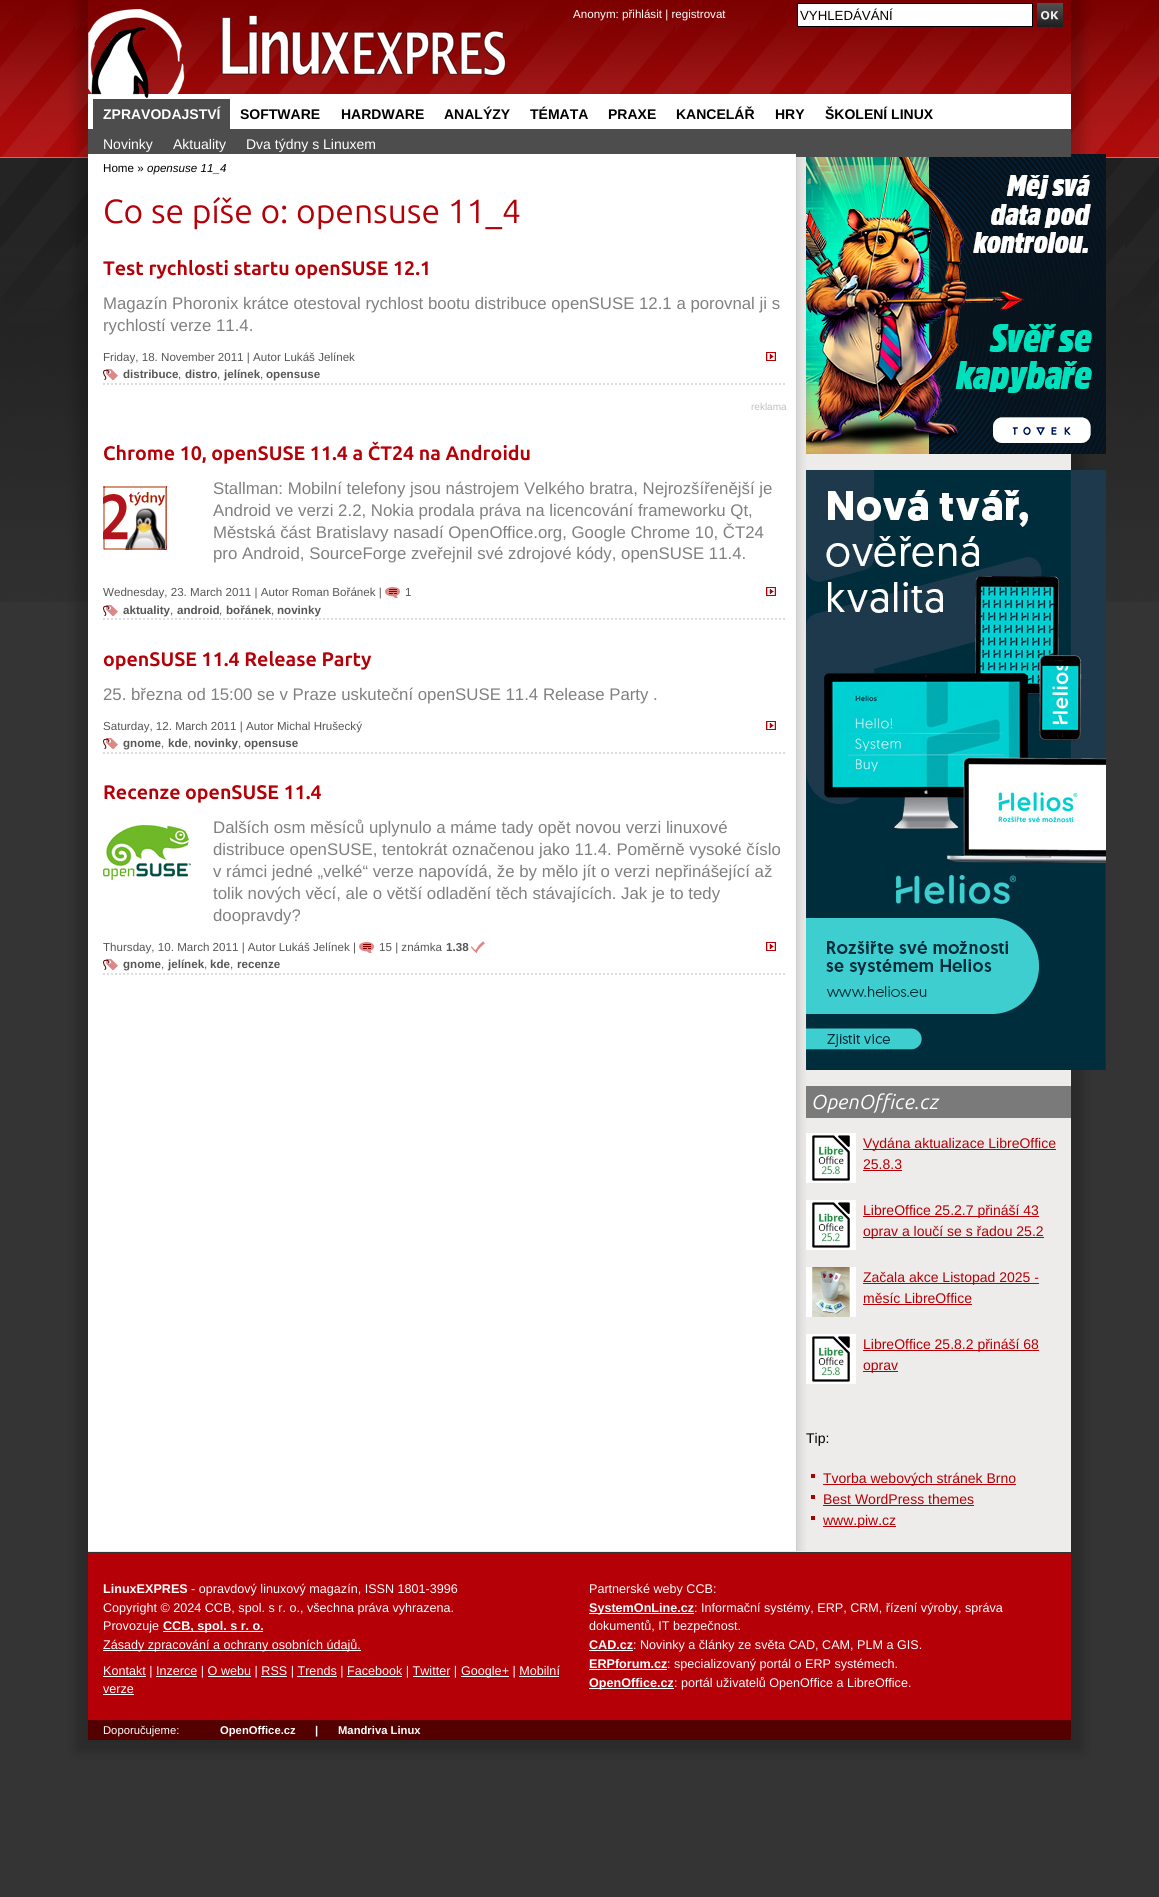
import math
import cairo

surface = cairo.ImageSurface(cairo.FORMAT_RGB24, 1159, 1897)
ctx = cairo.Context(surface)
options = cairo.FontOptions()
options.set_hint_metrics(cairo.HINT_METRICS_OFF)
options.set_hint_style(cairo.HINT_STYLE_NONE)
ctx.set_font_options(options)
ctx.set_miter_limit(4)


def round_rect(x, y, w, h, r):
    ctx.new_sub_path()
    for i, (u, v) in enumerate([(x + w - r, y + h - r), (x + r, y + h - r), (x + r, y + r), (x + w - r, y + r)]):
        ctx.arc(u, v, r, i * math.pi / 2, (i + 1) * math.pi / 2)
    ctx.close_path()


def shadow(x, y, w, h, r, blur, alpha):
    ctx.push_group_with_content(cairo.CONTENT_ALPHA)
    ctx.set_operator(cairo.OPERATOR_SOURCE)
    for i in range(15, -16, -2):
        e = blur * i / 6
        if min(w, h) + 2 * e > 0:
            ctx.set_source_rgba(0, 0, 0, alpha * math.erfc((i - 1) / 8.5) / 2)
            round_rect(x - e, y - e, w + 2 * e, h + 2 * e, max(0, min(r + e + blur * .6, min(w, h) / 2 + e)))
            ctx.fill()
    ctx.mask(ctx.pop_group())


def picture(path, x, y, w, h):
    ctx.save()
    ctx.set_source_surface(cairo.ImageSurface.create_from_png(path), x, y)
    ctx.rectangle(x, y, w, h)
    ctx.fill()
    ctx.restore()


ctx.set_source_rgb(0.204, 0.204, 0.204)
ctx.paint()
picture("img1.png", 0, 0, 1159, 602)
ctx.save()
ctx.set_fill_rule(cairo.FILL_RULE_EVEN_ODD)
ctx.new_path()
ctx.move_to(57, 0)
ctx.line_to(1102, 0)
ctx.line_to(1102, 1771)
ctx.line_to(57, 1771)
ctx.close_path()
ctx.move_to(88, 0)
ctx.line_to(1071, 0)
ctx.line_to(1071, 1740)
ctx.line_to(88, 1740)
ctx.close_path()
ctx.clip()
ctx.set_source_rgb(0, 0, 0)
shadow(76, -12, 1007, 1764, 0, 6, 0.2)
ctx.restore()
ctx.set_source_rgb(1, 1, 1)
ctx.rectangle(797.5, 3.5, 235, 23)
ctx.fill_preserve()
ctx.set_source_rgb(0, 0, 0)
ctx.set_line_width(1)
ctx.stroke()
ctx.select_font_face("Liberation Sans")
ctx.set_font_size(13.25)
ctx.move_to(800, 20)
ctx.show_text("VYHLEDÁVÁNÍ")
picture("img2.png", 1037, 3, 26, 24)
ctx.set_source_rgb(1, 1, 1)
ctx.rectangle(88, 94, 983, 35)
ctx.fill()
picture("img3.png", 88, 9, 418, 89)
ctx.set_font_size(11.6)
ctx.move_to(573, 18)
ctx.show_text("Anonym: přihlásit | registrovat")
ctx.set_source_rgb(0.929, 0.925, 0.918)
ctx.rectangle(88, 454, 983, 1098)
ctx.fill()
picture("img4.png", 796, 157, 260, 1394)
picture("img11.png", 806, 154, 300, 300)
ctx.set_source_rgb(0.302, 0.302, 0.302)
ctx.rectangle(88, 129, 983, 28)
ctx.fill()
ctx.rectangle(93, 99, 137, 30)
ctx.fill()
ctx.select_font_face("Liberation Sans", cairo.FONT_SLANT_NORMAL, cairo.FONT_WEIGHT_BOLD)
ctx.set_font_size(14)
ctx.set_source_rgb(1, 1, 1)
ctx.move_to(103, 119)
ctx.show_text("ZPRAVODAJSTVÍ")
ctx.select_font_face("Liberation Sans")
ctx.move_to(103, 149)
ctx.show_text("Novinky")
ctx.move_to(173, 149)
ctx.show_text("Aktuality")
ctx.move_to(246, 149)
ctx.show_text("Dva týdny s Linuxem")
ctx.select_font_face("Liberation Sans", cairo.FONT_SLANT_NORMAL, cairo.FONT_WEIGHT_BOLD)
ctx.set_source_rgb(0, 0, 0)
ctx.move_to(444, 119)
ctx.show_text("ANALÝZY")
ctx.move_to(530, 119)
ctx.show_text("TÉMATA")
ctx.move_to(676, 119)
ctx.show_text("KANCELÁŘ")
ctx.move_to(825, 119)
ctx.show_text("ŠKOLENÍ LINUX")
ctx.move_to(240, 119)
ctx.show_text("SOFTWARE")
ctx.move_to(341, 119)
ctx.show_text("HARDWARE")
ctx.move_to(608, 119)
ctx.show_text("PRAXE")
ctx.move_to(775, 119)
ctx.show_text("HRY")
ctx.set_source_rgb(1, 1, 1)
ctx.rectangle(88, 986, 708, 565)
ctx.fill()
ctx.rectangle(88, 154, 708, 832)
ctx.fill()
ctx.select_font_face("Liberation Sans")
ctx.set_font_size(11.6)
ctx.set_source_rgb(0, 0, 0)
ctx.move_to(103, 172)
ctx.show_text("Home »")
ctx.select_font_face("Liberation Sans", cairo.FONT_SLANT_ITALIC)
ctx.move_to(147, 172)
ctx.show_text("opensuse 11_4")
ctx.select_font_face("Ubuntu")
ctx.set_font_size(33.6)
ctx.set_source_rgb(0.706, 0, 0.024)
ctx.move_to(103, 223)
ctx.show_text("Co se píše o: opensuse 11_4")
ctx.select_font_face("Ubuntu", cairo.FONT_SLANT_NORMAL, cairo.FONT_WEIGHT_BOLD)
ctx.set_font_size(19.6)
ctx.move_to(103, 275)
ctx.show_text("Test rychlosti startu openSUSE 12.1")
ctx.select_font_face("Liberation Sans")
ctx.set_font_size(16.8)
ctx.set_source_rgb(0.502, 0.502, 0.502)
ctx.move_to(103, 309)
ctx.show_text("Magazín Phoronix krátce otestoval rychlost bootu distribuce openSUSE 12.1 a porovnal ji s")
ctx.move_to(103, 331)
ctx.show_text("rychlostí verze 11.4.")
ctx.new_path()
ctx.move_to(103, 384)
ctx.line_to(786, 384)
ctx.set_source_rgb(0.867, 0.867, 0.867)
ctx.set_line_width(2)
ctx.set_dash([2, 2])
ctx.stroke()
ctx.set_font_size(11.6)
ctx.set_source_rgb(0.337, 0.337, 0.337)
ctx.move_to(103, 361)
ctx.show_text("Friday, 18. November 2011 | Autor Lukáš Jelínek")
picture("img5.png", 766, 352, 10, 9)
picture("img6.png", 103, 369, 15, 11)
ctx.select_font_face("Liberation Sans", cairo.FONT_SLANT_NORMAL, cairo.FONT_WEIGHT_BOLD)
ctx.move_to(123, 378)
ctx.show_text("distribuce")
ctx.select_font_face("Liberation Sans")
ctx.move_to(178, 378)
ctx.show_text(",")
ctx.select_font_face("Liberation Sans", cairo.FONT_SLANT_NORMAL, cairo.FONT_WEIGHT_BOLD)
ctx.move_to(185, 378)
ctx.show_text("distro")
ctx.select_font_face("Liberation Sans")
ctx.move_to(217, 378)
ctx.show_text(",")
ctx.select_font_face("Liberation Sans", cairo.FONT_SLANT_NORMAL, cairo.FONT_WEIGHT_BOLD)
ctx.move_to(224, 378)
ctx.show_text("jelínek")
ctx.select_font_face("Liberation Sans")
ctx.move_to(260, 378)
ctx.show_text(",")
ctx.select_font_face("Liberation Sans", cairo.FONT_SLANT_NORMAL, cairo.FONT_WEIGHT_BOLD)
ctx.move_to(266, 378)
ctx.show_text("opensuse")
ctx.select_font_face("Liberation Sans")
ctx.set_font_size(10)
ctx.set_source_rgb(0.753, 0.753, 0.753)
ctx.move_to(751, 410)
ctx.show_text("reklama")
ctx.select_font_face("Ubuntu", cairo.FONT_SLANT_NORMAL, cairo.FONT_WEIGHT_BOLD)
ctx.set_font_size(19.6)
ctx.set_source_rgb(0.706, 0, 0.024)
ctx.move_to(103, 460)
ctx.show_text("Chrome 10, openSUSE 11.4 a ČT24 na Androidu")
picture("img7.png", 103, 486, 64, 64)
ctx.select_font_face("Liberation Sans")
ctx.set_font_size(16.8)
ctx.set_source_rgb(0.502, 0.502, 0.502)
ctx.move_to(213, 494)
ctx.show_text("Stallman: Mobilní telefony jsou nástrojem Velkého bratra, Nejrozšířenější je")
ctx.move_to(213, 516)
ctx.show_text("Android ve verzi 2.2, Nokia prodala práva na licencování frameworku Qt,")
ctx.move_to(213, 538)
ctx.show_text("Městská část Bratislavy nasadí OpenOffice.org, Google Chrome 10, ČT24")
ctx.move_to(213, 559)
ctx.show_text("pro Android, SourceForge zveřejnil své zdrojové kódy, openSUSE 11.4.")
ctx.new_path()
ctx.move_to(103, 619)
ctx.line_to(786, 619)
ctx.set_source_rgb(0.867, 0.867, 0.867)
ctx.stroke()
ctx.set_font_size(11.6)
ctx.set_source_rgb(0.337, 0.337, 0.337)
ctx.move_to(103, 596)
ctx.show_text("Wednesday, 23. March 2011 | Autor Roman Bořánek |")
picture("img8.png", 385, 587, 15, 11)
ctx.move_to(405, 596)
ctx.show_text("1")
picture("img5.png", 766, 587, 10, 9)
picture("img6.png", 103, 605, 15, 11)
ctx.select_font_face("Liberation Sans", cairo.FONT_SLANT_NORMAL, cairo.FONT_WEIGHT_BOLD)
ctx.move_to(123, 614)
ctx.show_text("aktuality")
ctx.select_font_face("Liberation Sans")
ctx.move_to(170, 614)
ctx.show_text(",")
ctx.select_font_face("Liberation Sans", cairo.FONT_SLANT_NORMAL, cairo.FONT_WEIGHT_BOLD)
ctx.move_to(177, 614)
ctx.show_text("android")
ctx.select_font_face("Liberation Sans")
ctx.move_to(219, 614)
ctx.show_text(",")
ctx.select_font_face("Liberation Sans", cairo.FONT_SLANT_NORMAL, cairo.FONT_WEIGHT_BOLD)
ctx.move_to(226, 614)
ctx.show_text("bořánek")
ctx.select_font_face("Liberation Sans")
ctx.move_to(271, 614)
ctx.show_text(",")
ctx.select_font_face("Liberation Sans", cairo.FONT_SLANT_NORMAL, cairo.FONT_WEIGHT_BOLD)
ctx.move_to(277, 614)
ctx.show_text("novinky")
ctx.select_font_face("Ubuntu", cairo.FONT_SLANT_NORMAL, cairo.FONT_WEIGHT_BOLD)
ctx.set_font_size(19.6)
ctx.set_source_rgb(0.706, 0, 0.024)
ctx.move_to(103, 666)
ctx.show_text("openSUSE 11.4 Release Party")
ctx.select_font_face("Liberation Sans")
ctx.set_font_size(16.8)
ctx.set_source_rgb(0.502, 0.502, 0.502)
ctx.move_to(103, 700)
ctx.show_text("25. března od 15:00 se v Praze uskuteční openSUSE 11.4 Release Party .")
ctx.new_path()
ctx.move_to(103, 753)
ctx.line_to(786, 753)
ctx.set_source_rgb(0.867, 0.867, 0.867)
ctx.stroke()
ctx.set_font_size(11.6)
ctx.set_source_rgb(0.337, 0.337, 0.337)
ctx.move_to(103, 730)
ctx.show_text("Saturday, 12. March 2011 | Autor Michal Hrušecký")
picture("img5.png", 766, 721, 10, 9)
picture("img6.png", 103, 738, 15, 11)
ctx.select_font_face("Liberation Sans", cairo.FONT_SLANT_NORMAL, cairo.FONT_WEIGHT_BOLD)
ctx.move_to(123, 747)
ctx.show_text("gnome")
ctx.select_font_face("Liberation Sans")
ctx.move_to(161, 747)
ctx.show_text(",")
ctx.select_font_face("Liberation Sans", cairo.FONT_SLANT_NORMAL, cairo.FONT_WEIGHT_BOLD)
ctx.move_to(168, 747)
ctx.show_text("kde")
ctx.select_font_face("Liberation Sans")
ctx.move_to(188, 747)
ctx.show_text(",")
ctx.select_font_face("Liberation Sans", cairo.FONT_SLANT_NORMAL, cairo.FONT_WEIGHT_BOLD)
ctx.move_to(194, 747)
ctx.show_text("novinky")
ctx.select_font_face("Liberation Sans")
ctx.move_to(238, 747)
ctx.show_text(",")
ctx.select_font_face("Liberation Sans", cairo.FONT_SLANT_NORMAL, cairo.FONT_WEIGHT_BOLD)
ctx.move_to(244, 747)
ctx.show_text("opensuse")
ctx.select_font_face("Ubuntu", cairo.FONT_SLANT_NORMAL, cairo.FONT_WEIGHT_BOLD)
ctx.set_font_size(19.6)
ctx.set_source_rgb(0.706, 0, 0.024)
ctx.move_to(103, 799)
ctx.show_text("Recenze openSUSE 11.4")
picture("img9.png", 103, 825, 88, 55)
ctx.select_font_face("Liberation Sans")
ctx.set_font_size(16.8)
ctx.set_source_rgb(0.502, 0.502, 0.502)
ctx.move_to(213, 833)
ctx.show_text("Dalších osm měsíců uplynulo a máme tady opět novou verzi linuxové")
ctx.move_to(213, 855)
ctx.show_text("distribuce openSUSE, tentokrát označenou jako 11.4. Poměrně vysoké číslo")
ctx.move_to(213, 877)
ctx.show_text("v rámci jedné „velké“ verze napovídá, že by mělo jít o verzi nepřinášející až")
ctx.move_to(213, 899)
ctx.show_text("tolik nových věcí, ale o větší odladění těch stávajících. Jak je to tedy")
ctx.move_to(213, 921)
ctx.show_text("doopravdy?")
ctx.new_path()
ctx.move_to(103, 974)
ctx.line_to(786, 974)
ctx.set_source_rgb(0.867, 0.867, 0.867)
ctx.stroke()
ctx.set_font_size(11.6)
ctx.set_source_rgb(0.337, 0.337, 0.337)
ctx.move_to(103, 951)
ctx.show_text("Thursday, 10. March 2011 | Autor Lukáš Jelínek |")
picture("img8.png", 359, 942, 15, 11)
ctx.move_to(379, 951)
ctx.show_text("15 | známka")
ctx.select_font_face("Liberation Sans", cairo.FONT_SLANT_NORMAL, cairo.FONT_WEIGHT_BOLD)
ctx.move_to(446, 951)
ctx.show_text("1.38")
picture("img10.png", 471, 941, 14, 12)
picture("img5.png", 766, 942, 10, 9)
picture("img6.png", 103, 959, 15, 11)
ctx.move_to(123, 968)
ctx.show_text("gnome")
ctx.select_font_face("Liberation Sans")
ctx.move_to(161, 968)
ctx.show_text(",")
ctx.select_font_face("Liberation Sans", cairo.FONT_SLANT_NORMAL, cairo.FONT_WEIGHT_BOLD)
ctx.move_to(168, 968)
ctx.show_text("jelínek")
ctx.select_font_face("Liberation Sans")
ctx.move_to(204, 968)
ctx.show_text(",")
ctx.select_font_face("Liberation Sans", cairo.FONT_SLANT_NORMAL, cairo.FONT_WEIGHT_BOLD)
ctx.move_to(210, 968)
ctx.show_text("kde")
ctx.select_font_face("Liberation Sans")
ctx.move_to(230, 968)
ctx.show_text(",")
ctx.select_font_face("Liberation Sans", cairo.FONT_SLANT_NORMAL, cairo.FONT_WEIGHT_BOLD)
ctx.move_to(237, 968)
ctx.show_text("recenze")
picture("img12.png", 806, 470, 300, 600)
ctx.set_source_rgb(0.478, 0.478, 0.478)
ctx.rectangle(806, 1086, 265, 32)
ctx.fill()
ctx.select_font_face("Ubuntu", cairo.FONT_SLANT_ITALIC)
ctx.set_font_size(20.25)
ctx.set_source_rgb(1, 1, 1)
ctx.move_to(812, 1109)
ctx.show_text("OpenOffice.cz")
picture("img13.png", 806, 1133, 50, 50)
ctx.set_source_rgb(0.706, 0, 0.024)
ctx.rectangle(863, 1149, 193, 1)
ctx.fill()
ctx.select_font_face("Liberation Sans")
ctx.set_font_size(14)
ctx.move_to(863, 1148)
ctx.show_text("Vydána aktualizace LibreOffice")
ctx.move_to(863, 1169)
ctx.show_text("25.8.3")
ctx.rectangle(863, 1170, 39, 1)
ctx.fill()
picture("img14.png", 806, 1200, 50, 50)
ctx.rectangle(863, 1216, 176, 1)
ctx.fill()
ctx.move_to(863, 1215)
ctx.show_text("LibreOffice 25.2.7 přináší 43")
ctx.rectangle(863, 1237, 181, 1)
ctx.fill()
ctx.move_to(863, 1236)
ctx.show_text("oprav a loučí se s řadou 25.2")
picture("img15.png", 806, 1267, 50, 50)
ctx.rectangle(863, 1283, 176, 1)
ctx.fill()
ctx.move_to(863, 1282)
ctx.show_text("Začala akce Listopad 2025 -")
ctx.move_to(863, 1303)
ctx.show_text("měsíc LibreOffice")
ctx.rectangle(863, 1304, 109, 1)
ctx.fill()
picture("img16.png", 806, 1334, 50, 50)
ctx.rectangle(863, 1350, 176, 1)
ctx.fill()
ctx.move_to(863, 1349)
ctx.show_text("LibreOffice 25.8.2 přináší 68")
ctx.rectangle(863, 1371, 35, 1)
ctx.fill()
ctx.move_to(863, 1370)
ctx.show_text("oprav")
ctx.set_source_rgb(0, 0, 0)
ctx.move_to(806, 1443)
ctx.show_text("Tip:")
ctx.set_source_rgb(0.667, 0, 0)
ctx.rectangle(811, 1474, 4, 4)
ctx.fill()
ctx.set_source_rgb(0.706, 0, 0.024)
ctx.rectangle(823, 1484, 193, 1)
ctx.fill()
ctx.move_to(823, 1483)
ctx.show_text("Tvorba webových stránek Brno")
ctx.set_source_rgb(0.667, 0, 0)
ctx.rectangle(811, 1495, 4, 4)
ctx.fill()
ctx.set_source_rgb(0.706, 0, 0.024)
ctx.move_to(823, 1504)
ctx.show_text("Best WordPress themes")
ctx.rectangle(823, 1505, 151, 1)
ctx.fill()
ctx.set_source_rgb(0.667, 0, 0)
ctx.rectangle(811, 1516, 4, 4)
ctx.fill()
ctx.set_source_rgb(0.706, 0, 0.024)
ctx.rectangle(823, 1526, 73, 1)
ctx.fill()
ctx.move_to(823, 1525)
ctx.show_text("www.piw.cz")
ctx.rectangle(88, 1553, 983, 167)
ctx.fill()
ctx.select_font_face("Liberation Sans", cairo.FONT_SLANT_NORMAL, cairo.FONT_WEIGHT_BOLD)
ctx.set_font_size(12.6)
ctx.set_source_rgb(1, 1, 1)
ctx.move_to(103, 1593)
ctx.show_text("LinuxEXPRES")
ctx.select_font_face("Liberation Sans")
ctx.move_to(191, 1593)
ctx.show_text("- opravdový linuxový magazín, ISSN 1801-3996")
ctx.move_to(103, 1612)
ctx.show_text("Copyright © 2024 CCB, spol. s r. o., všechna práva vyhrazena.")
ctx.move_to(103, 1630)
ctx.show_text("Provozuje")
ctx.rectangle(163, 1631, 100, 1)
ctx.fill()
ctx.select_font_face("Liberation Sans", cairo.FONT_SLANT_NORMAL, cairo.FONT_WEIGHT_BOLD)
ctx.move_to(163, 1630)
ctx.show_text("CCB, spol. s r. o.")
ctx.rectangle(103, 1650, 258, 1)
ctx.fill()
ctx.select_font_face("Liberation Sans")
ctx.move_to(103, 1649)
ctx.show_text("Zásady zpracování a ochrany osobních údajů.")
ctx.rectangle(103, 1676, 43, 1)
ctx.fill()
ctx.move_to(103, 1675)
ctx.show_text("Kontakt | Inzerce | O webu | RSS | Trends | Facebook | Twitter |")
ctx.rectangle(461, 1676, 48, 1)
ctx.fill()
ctx.move_to(461, 1675)
ctx.show_text("Google+ | Mobilní")
ctx.rectangle(156, 1676, 41, 1)
ctx.fill()
ctx.rectangle(208, 1676, 43, 1)
ctx.fill()
ctx.rectangle(261, 1676, 26, 1)
ctx.fill()
ctx.rectangle(297, 1676, 40, 1)
ctx.fill()
ctx.rectangle(347, 1676, 55, 1)
ctx.fill()
ctx.rectangle(413, 1676, 37, 1)
ctx.fill()
ctx.move_to(103, 1693)
ctx.show_text("verze")
ctx.rectangle(519, 1676, 40, 1)
ctx.fill()
ctx.rectangle(103, 1694, 31, 1)
ctx.fill()
ctx.move_to(589, 1593)
ctx.show_text("Partnerské weby CCB:")
ctx.rectangle(589, 1613, 105, 1)
ctx.fill()
ctx.select_font_face("Liberation Sans", cairo.FONT_SLANT_NORMAL, cairo.FONT_WEIGHT_BOLD)
ctx.move_to(589, 1612)
ctx.show_text("SystemOnLine.cz")
ctx.select_font_face("Liberation Sans")
ctx.move_to(694, 1612)
ctx.show_text(": Informační systémy, ERP, CRM, řízení výroby, správa")
ctx.move_to(589, 1630)
ctx.show_text("dokumentů, IT bezpečnost.")
ctx.select_font_face("Liberation Sans", cairo.FONT_SLANT_NORMAL, cairo.FONT_WEIGHT_BOLD)
ctx.move_to(589, 1649)
ctx.show_text("CAD.cz")
ctx.rectangle(589, 1650, 44, 1)
ctx.fill()
ctx.select_font_face("Liberation Sans")
ctx.move_to(633, 1649)
ctx.show_text(": Novinky a články ze světa CAD, CAM, PLM a GIS.")
ctx.select_font_face("Liberation Sans", cairo.FONT_SLANT_NORMAL, cairo.FONT_WEIGHT_BOLD)
ctx.move_to(589, 1668)
ctx.show_text("ERPforum.cz")
ctx.rectangle(589, 1669, 78, 1)
ctx.fill()
ctx.select_font_face("Liberation Sans")
ctx.move_to(667, 1668)
ctx.show_text(": specializovaný portál o ERP systémech.")
ctx.rectangle(589, 1688, 85, 1)
ctx.fill()
ctx.select_font_face("Liberation Sans", cairo.FONT_SLANT_NORMAL, cairo.FONT_WEIGHT_BOLD)
ctx.move_to(589, 1687)
ctx.show_text("OpenOffice.cz")
ctx.select_font_face("Liberation Sans")
ctx.move_to(674, 1687)
ctx.show_text(": portál uživatelů OpenOffice a LibreOffice.")
ctx.set_source_rgb(0.333, 0, 0)
ctx.rectangle(88, 1720, 983, 20)
ctx.fill()
ctx.set_font_size(11.25)
ctx.set_source_rgb(1, 1, 1)
ctx.move_to(103, 1734)
ctx.show_text("Doporučujeme:")
ctx.select_font_face("Liberation Sans", cairo.FONT_SLANT_NORMAL, cairo.FONT_WEIGHT_BOLD)
ctx.move_to(220, 1734)
ctx.show_text("OpenOffice.cz")
ctx.move_to(315, 1734)
ctx.show_text("|")
ctx.move_to(338, 1734)
ctx.show_text("Mandriva Linux")
surface.write_to_png("page.png")
